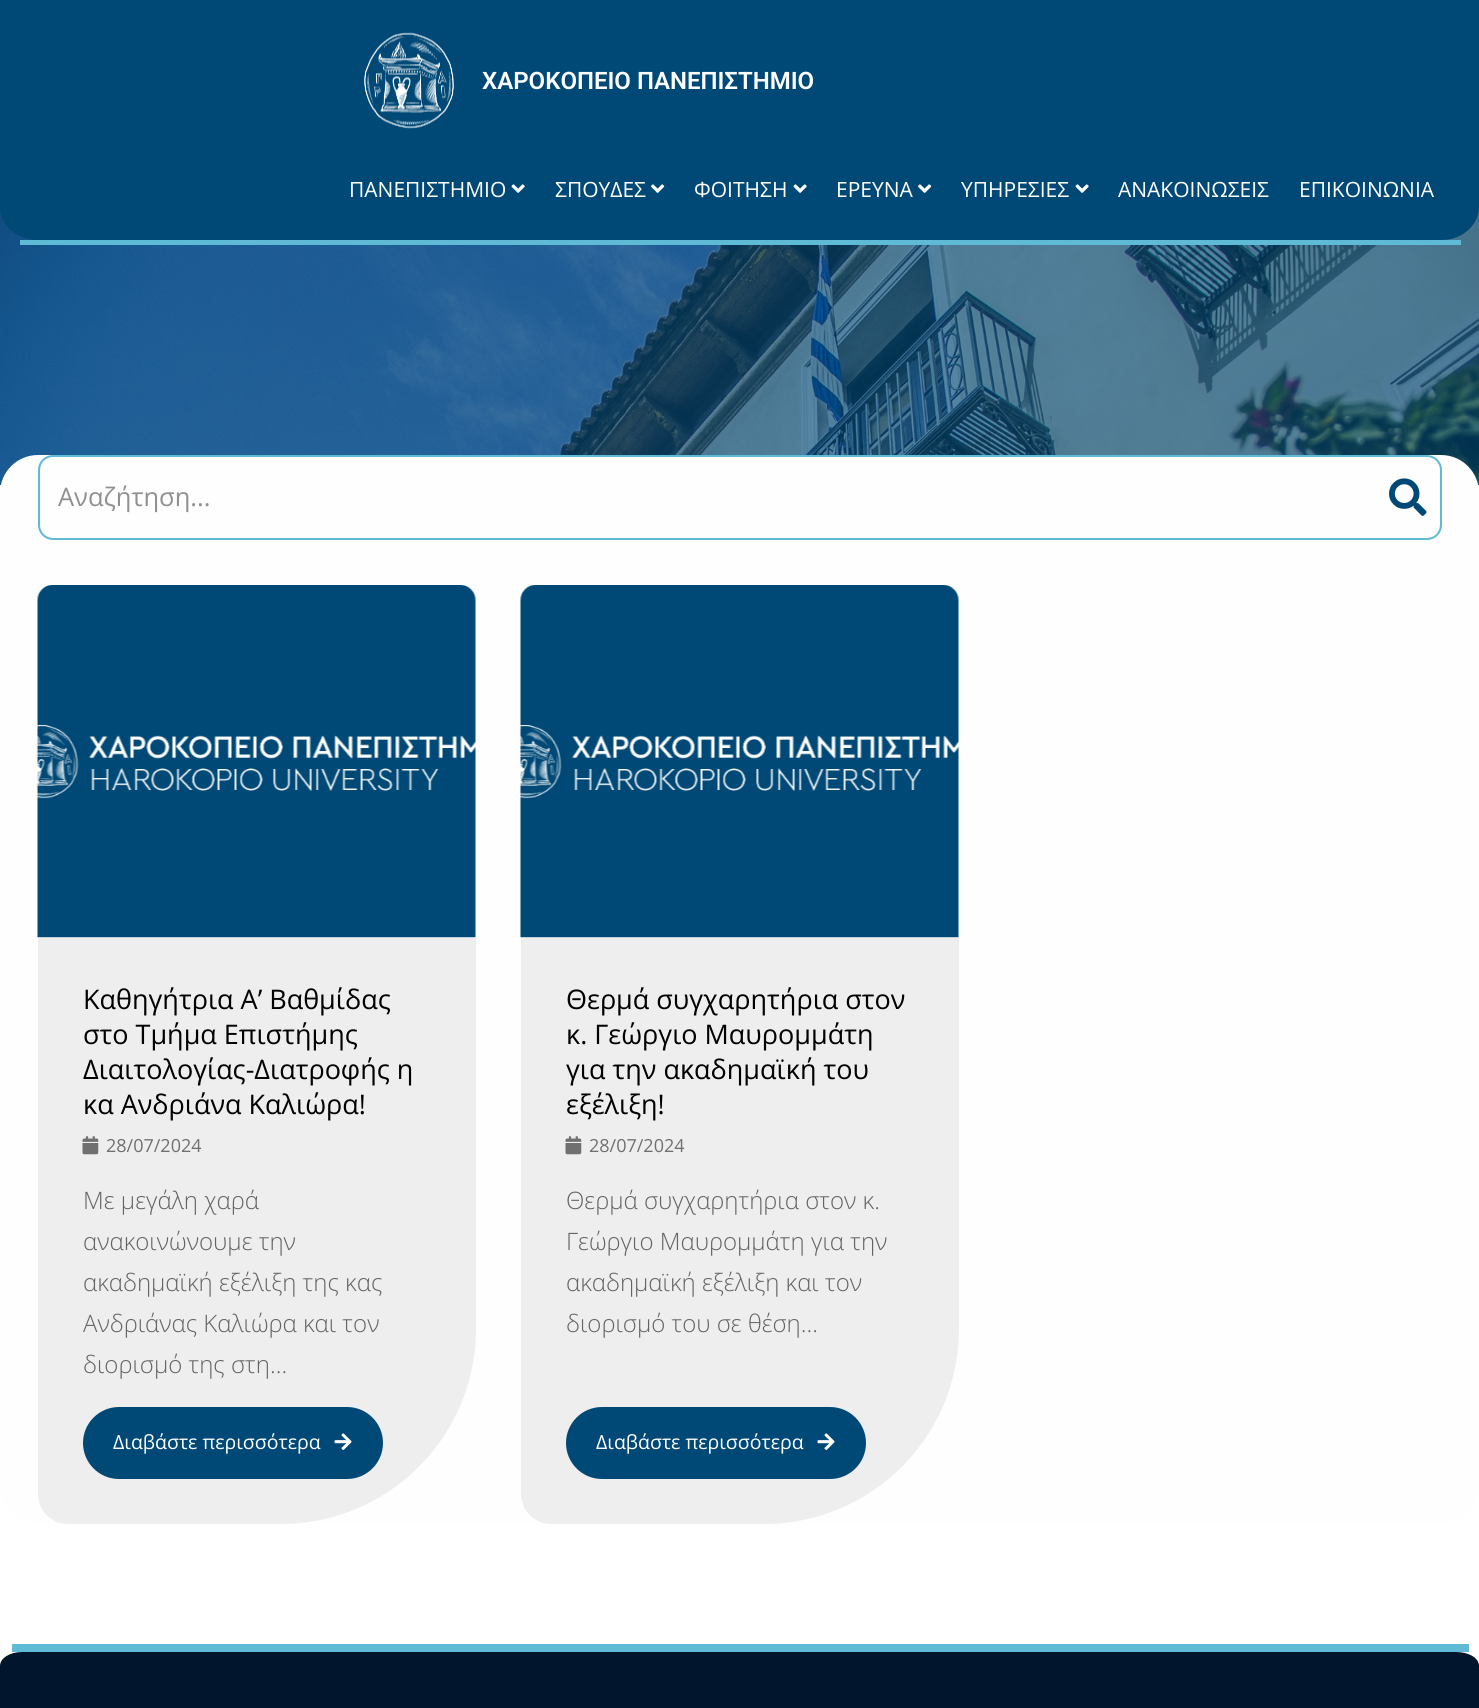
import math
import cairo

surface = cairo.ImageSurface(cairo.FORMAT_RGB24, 1479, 1708)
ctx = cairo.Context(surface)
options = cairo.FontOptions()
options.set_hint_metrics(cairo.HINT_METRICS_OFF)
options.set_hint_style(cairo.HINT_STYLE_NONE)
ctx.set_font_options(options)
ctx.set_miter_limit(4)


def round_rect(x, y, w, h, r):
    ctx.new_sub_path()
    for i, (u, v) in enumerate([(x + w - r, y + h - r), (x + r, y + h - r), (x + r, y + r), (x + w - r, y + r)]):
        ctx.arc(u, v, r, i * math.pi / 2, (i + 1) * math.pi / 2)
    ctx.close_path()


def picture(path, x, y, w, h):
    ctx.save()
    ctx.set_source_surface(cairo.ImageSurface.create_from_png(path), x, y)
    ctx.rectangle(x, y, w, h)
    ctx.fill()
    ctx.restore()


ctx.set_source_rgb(1, 1, 1)
ctx.paint()
ctx.set_source_rgb(0.043, 0.231, 0.392)
ctx.rectangle(0, 484, 1479, 1)
ctx.fill()
picture("img4.png", 0, 207, 1479, 278)
ctx.set_source_rgb(0, 0.286, 0.463)
ctx.new_path()
ctx.move_to(0, 0)
ctx.line_to(1479, 0)
ctx.line_to(1479, 207)
ctx.curve_to(1479, 225, 1462, 240, 1442, 240)
ctx.line_to(38, 240)
ctx.curve_to(17, 240, 0, 225, 0, 207)
ctx.close_path()
ctx.fill()
ctx.set_source_rgb(0.373, 0.729, 0.835)
ctx.rectangle(20, 240, 1441, 5)
ctx.fill()
picture("img1.png", 364, 32, 90, 97)
ctx.select_font_face("Roboto SemiBold")
ctx.set_font_size(24)
ctx.set_source_rgb(1, 1, 1)
ctx.move_to(482, 89)
ctx.show_text("ΧΑΡΟΚΟΠΕΙΟ ΠΑΝΕΠΙΣΤΗΜΙΟ")
ctx.select_font_face("Open Sans")
ctx.set_font_size(21)
ctx.move_to(349, 197)
ctx.show_text("ΠΑΝΕΠΙΣΤΗΜΙΟ")
picture("img2.png", 511, 184, 14, 9)
ctx.move_to(555, 197)
ctx.show_text("ΣΠΟΥΔΕΣ")
picture("img3.png", 651, 184, 14, 9)
ctx.move_to(694, 197)
ctx.show_text("ΦΟΙΤΗΣΗ")
picture("img2.png", 793, 184, 14, 9)
ctx.move_to(836, 197)
ctx.show_text("ΕΡΕΥΝΑ")
picture("img3.png", 918, 184, 14, 9)
ctx.move_to(961, 197)
ctx.show_text("ΥΠΗΡΕΣΙΕΣ")
picture("img2.png", 1075, 184, 14, 9)
ctx.move_to(1118, 197)
ctx.show_text("ΑΝΑΚΟΙΝΩΣΕΙΣ")
ctx.move_to(1299, 197)
ctx.show_text("ΕΠΙΚΟΙΝΩΝΙΑ")
ctx.set_source_rgb(0.996, 0.996, 1)
round_rect(0, 455, 1479, 1069, 38)
ctx.fill()
round_rect(39, 456, 1402, 83, 14)
ctx.set_source_rgb(0.373, 0.729, 0.835)
ctx.stroke()
ctx.set_font_size(25.5)
ctx.set_source_rgb(0.565, 0.565, 0.565)
ctx.move_to(58, 506)
ctx.show_text("Αναζήτηση...")
picture("img5.png", 1389, 478, 38, 38)
picture("img6.png", 37, 585, 439, 353)
ctx.set_source_rgb(0.933, 0.933, 0.933)
ctx.new_path()
ctx.move_to(38, 938)
ctx.line_to(476, 938)
ctx.line_to(476, 1329)
ctx.curve_to(476, 1436.5, 388.5, 1524, 281, 1524)
ctx.line_to(68, 1524)
ctx.curve_to(51.5, 1524, 38, 1510.5, 38, 1494)
ctx.close_path()
ctx.fill()
ctx.set_font_size(27)
ctx.set_source_rgb(0, 0, 0)
ctx.move_to(83, 1009)
ctx.show_text("Καθηγήτρια Α’ Βαθμίδας")
ctx.move_to(83, 1044)
ctx.show_text("στο Τμήμα Επιστήμης")
ctx.move_to(83, 1079)
ctx.show_text("Διαιτολογίας-Διατροφής η")
ctx.move_to(83, 1114)
ctx.show_text("κα Ανδριάνα Καλιώρα!")
picture("img7.png", 82, 1136, 17, 19)
ctx.set_font_size(18)
ctx.set_source_rgb(0.439, 0.439, 0.439)
ctx.move_to(106, 1152)
ctx.show_text("28/07/2024")
ctx.select_font_face("Open Sans Light")
ctx.set_font_size(24)
ctx.set_source_rgb(0.388, 0.388, 0.388)
ctx.move_to(83, 1209)
ctx.show_text("Με μεγάλη χαρά")
ctx.move_to(83, 1250)
ctx.show_text("ανακοινώνουμε την")
ctx.move_to(83, 1291)
ctx.show_text("ακαδημαϊκή εξέλιξη της κας")
ctx.move_to(83, 1332)
ctx.show_text("Ανδριάνας Καλιώρα και τον")
ctx.move_to(83, 1373)
ctx.show_text("διορισμό της στη...")
ctx.set_source_rgb(0, 0.286, 0.463)
round_rect(83, 1407, 300, 72, 36)
ctx.fill()
ctx.select_font_face("Open Sans")
ctx.set_font_size(19.5)
ctx.set_source_rgb(1, 1, 1)
ctx.move_to(113, 1449)
ctx.show_text("Διαβάστε περισσότερα")
picture("img8.png", 334, 1433, 18, 17)
picture("img6.png", 520, 585, 439, 353)
ctx.set_source_rgb(0.933, 0.933, 0.933)
ctx.new_path()
ctx.move_to(521, 938)
ctx.line_to(959, 938)
ctx.line_to(959, 1329)
ctx.curve_to(959, 1436.5, 871.5, 1524, 764, 1524)
ctx.line_to(551, 1524)
ctx.curve_to(534.5, 1524, 521, 1510.5, 521, 1494)
ctx.close_path()
ctx.fill()
ctx.set_font_size(27)
ctx.set_source_rgb(0, 0, 0)
ctx.move_to(566, 1009)
ctx.show_text("Θερμά συγχαρητήρια στον")
ctx.move_to(566, 1044)
ctx.show_text("κ. Γεώργιο Μαυρομμάτη")
ctx.move_to(566, 1079)
ctx.show_text("για την ακαδημαϊκή του")
ctx.move_to(566, 1114)
ctx.show_text("εξέλιξη!")
picture("img7.png", 565, 1136, 17, 19)
ctx.set_font_size(18)
ctx.set_source_rgb(0.439, 0.439, 0.439)
ctx.move_to(589, 1152)
ctx.show_text("28/07/2024")
ctx.select_font_face("Open Sans Light")
ctx.set_font_size(24)
ctx.set_source_rgb(0.388, 0.388, 0.388)
ctx.move_to(566, 1209)
ctx.show_text("Θερμά συγχαρητήρια στον κ.")
ctx.move_to(566, 1250)
ctx.show_text("Γεώργιο Μαυρομμάτη για την")
ctx.move_to(566, 1291)
ctx.show_text("ακαδημαϊκή εξέλιξη και τον")
ctx.move_to(566, 1332)
ctx.show_text("διορισμό του σε θέση...")
ctx.set_source_rgb(0, 0.286, 0.463)
round_rect(566, 1407, 300, 72, 36)
ctx.fill()
ctx.select_font_face("Open Sans")
ctx.set_font_size(19.5)
ctx.set_source_rgb(1, 1, 1)
ctx.move_to(596, 1449)
ctx.show_text("Διαβάστε περισσότερα")
picture("img8.png", 817, 1433, 18, 17)
ctx.set_source_rgb(0.004, 0.086, 0.176)
ctx.new_path()
ctx.move_to(22, 1652)
ctx.line_to(1456, 1652)
ctx.curve_to(1469, 1652, 1479, 1658, 1479, 1666)
ctx.line_to(1479, 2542)
ctx.line_to(0, 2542)
ctx.line_to(0, 1666)
ctx.curve_to(0, 1658, 10, 1652, 22, 1652)
ctx.close_path()
ctx.fill()
ctx.set_source_rgb(0.373, 0.729, 0.835)
ctx.rectangle(12, 1644, 1457, 8)
ctx.fill()
surface.write_to_png("page.png")
